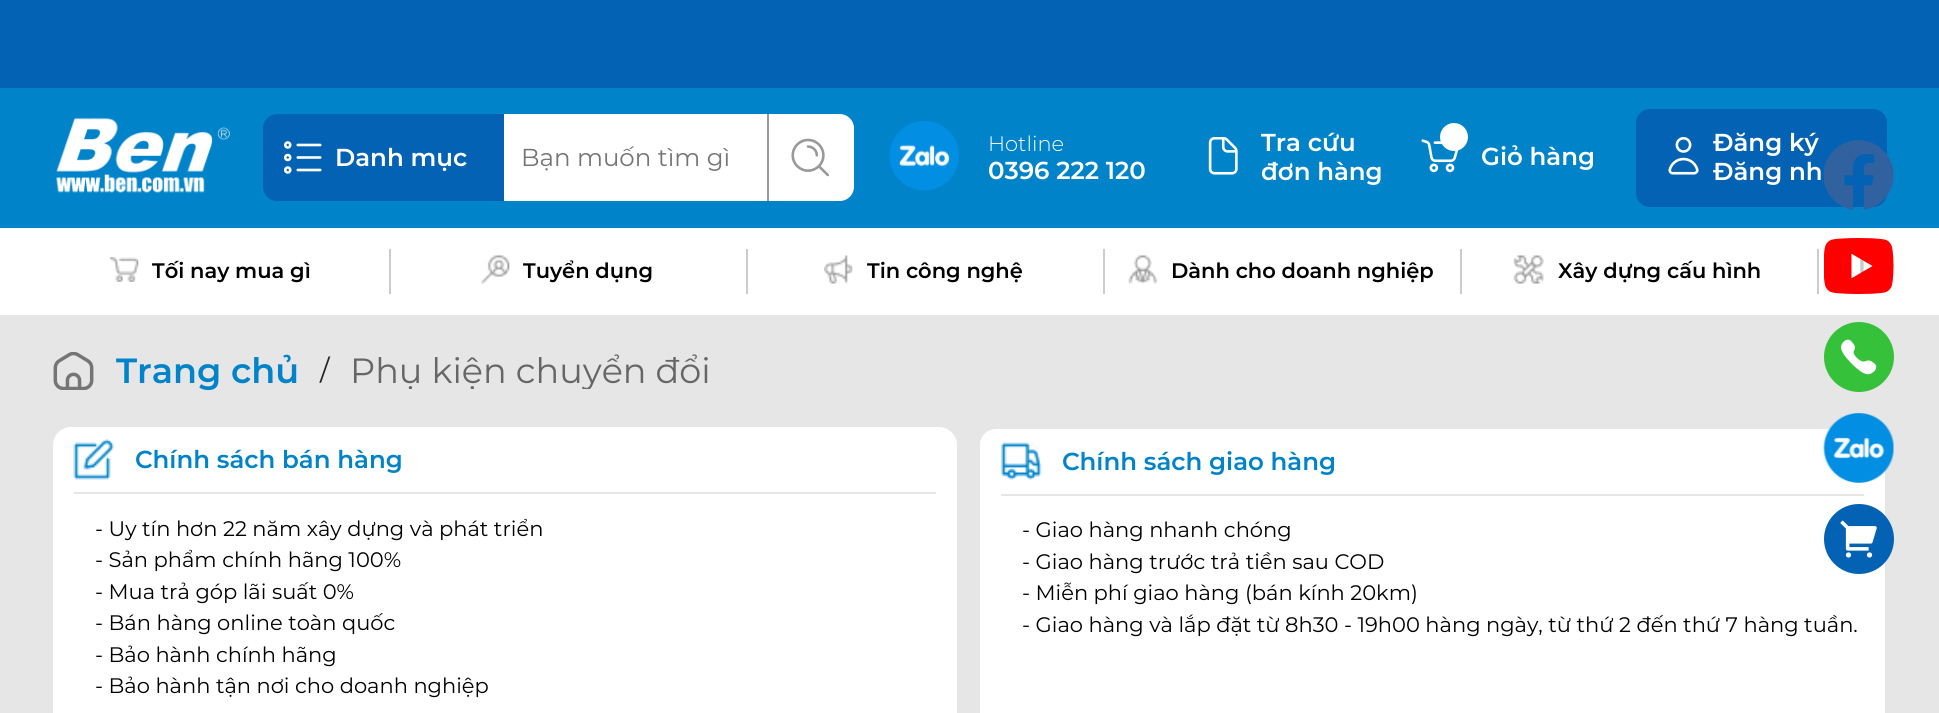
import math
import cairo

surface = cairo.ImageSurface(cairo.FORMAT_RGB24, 1939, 713)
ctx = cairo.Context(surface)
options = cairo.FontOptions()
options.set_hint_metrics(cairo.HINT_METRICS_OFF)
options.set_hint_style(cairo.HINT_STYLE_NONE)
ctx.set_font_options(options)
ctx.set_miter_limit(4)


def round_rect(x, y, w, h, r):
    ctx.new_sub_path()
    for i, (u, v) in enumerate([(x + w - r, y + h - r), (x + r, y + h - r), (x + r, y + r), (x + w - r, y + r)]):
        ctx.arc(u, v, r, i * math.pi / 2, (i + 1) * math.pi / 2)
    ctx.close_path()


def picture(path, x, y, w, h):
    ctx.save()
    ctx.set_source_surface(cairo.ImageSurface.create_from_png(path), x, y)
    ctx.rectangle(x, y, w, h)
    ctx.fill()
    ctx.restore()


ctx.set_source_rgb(0.902, 0.902, 0.902)
ctx.paint()
ctx.set_source_rgb(0.012, 0.384, 0.706)
ctx.rectangle(0, 0, 1939, 88)
ctx.fill()
ctx.set_source_rgb(0, 0.514, 0.788)
ctx.rectangle(0, 88, 1939, 140)
ctx.fill()
picture("img1.png", 56, 117, 174, 76)
ctx.set_source_rgb(0.012, 0.384, 0.706)
ctx.new_path()
ctx.move_to(277, 114)
ctx.line_to(504, 114)
ctx.line_to(504, 201)
ctx.line_to(277, 201)
ctx.curve_to(269.5, 201, 263, 194.5, 263, 187)
ctx.line_to(263, 128)
ctx.curve_to(263, 120.5, 269.5, 114, 277, 114)
ctx.close_path()
ctx.fill()
picture("img2.png", 284, 141, 38, 33)
ctx.select_font_face("Montserrat SemiBold")
ctx.set_font_size(24.5)
ctx.set_source_rgb(1, 1, 1)
ctx.move_to(335, 166)
ctx.show_text("Danh mục")
ctx.new_path()
ctx.move_to(504, 114)
ctx.line_to(840, 114)
ctx.curve_to(847.5, 114, 854, 120.5, 854, 128)
ctx.line_to(854, 187)
ctx.curve_to(854, 194.5, 847.5, 201, 840, 201)
ctx.line_to(504, 201)
ctx.close_path()
ctx.fill()
ctx.select_font_face("Montserrat")
ctx.set_source_rgb(0.459, 0.459, 0.459)
ctx.move_to(521, 166)
ctx.show_text("Bạn muốn tìm gì")
ctx.set_source_rgb(1, 1, 1)
ctx.new_path()
ctx.move_to(767, 114)
ctx.line_to(836, 114)
ctx.curve_to(846, 114, 854, 122, 854, 132)
ctx.line_to(854, 183)
ctx.curve_to(854, 193, 846, 201, 836, 201)
ctx.line_to(767, 201)
ctx.close_path()
ctx.fill()
ctx.set_source_rgb(0.6, 0.6, 0.6)
ctx.rectangle(767, 114, 2, 87)
ctx.fill()
picture("img3.png", 791, 138, 38, 39)
picture("img4.png", 889, 121, 70, 70)
ctx.select_font_face("Montserrat Light")
ctx.set_font_size(21)
ctx.set_source_rgb(1, 1, 1)
ctx.move_to(988, 151)
ctx.show_text("Hotline")
ctx.select_font_face("Montserrat SemiBold")
ctx.set_font_size(24.5)
ctx.move_to(988, 179)
ctx.show_text("0396 222 120")
picture("img5.png", 1208, 137, 30, 38)
ctx.move_to(1261, 151)
ctx.show_text("Tra cứu")
ctx.move_to(1261, 180)
ctx.show_text("đơn hàng")
picture("img6.png", 1421, 139, 38, 34)
ctx.arc(1454, 137, 13, 0, 2 * math.pi)
ctx.fill_preserve()
ctx.stroke()
ctx.move_to(1481, 165)
ctx.show_text("Giỏ hàng")
ctx.set_source_rgb(0.012, 0.384, 0.706)
round_rect(1636, 109, 251, 98, 14)
ctx.fill()
picture("img7.png", 1668, 137, 31, 38)
ctx.set_source_rgb(1, 1, 1)
ctx.move_to(1713, 151)
ctx.show_text("Đăng ký")
ctx.move_to(1713, 180)
ctx.show_text("Đăng nh")
ctx.rectangle(0, 228, 1939, 87)
ctx.fill()
picture("img8.png", 110, 257, 29, 25)
ctx.set_font_size(21)
ctx.set_source_rgb(0, 0, 0)
ctx.move_to(152, 278)
ctx.show_text("Tối nay mua gì")
ctx.set_source_rgb(0.8, 0.8, 0.8)
ctx.rectangle(389, 249, 2, 45)
ctx.fill()
picture("img9.png", 481, 255, 29, 29)
ctx.set_source_rgb(0, 0, 0)
ctx.move_to(523, 278)
ctx.show_text("Tuyển dụng")
ctx.set_source_rgb(0.8, 0.8, 0.8)
ctx.rectangle(746, 249, 2, 45)
ctx.fill()
picture("img10.png", 824, 255, 29, 29)
ctx.set_source_rgb(0, 0, 0)
ctx.move_to(867, 278)
ctx.show_text("Tin công nghệ")
ctx.set_source_rgb(0.8, 0.8, 0.8)
ctx.rectangle(1103, 249, 2, 45)
ctx.fill()
picture("img11.png", 1128, 255, 29, 29)
ctx.set_source_rgb(0, 0, 0)
ctx.move_to(1171, 278)
ctx.show_text("Dành cho doanh nghiệp")
ctx.set_source_rgb(0.8, 0.8, 0.8)
ctx.rectangle(1460, 249, 2, 45)
ctx.fill()
picture("img12.png", 1513, 255, 31, 29)
ctx.set_source_rgb(0, 0, 0)
ctx.move_to(1558, 278)
ctx.show_text("Xây dựng cấu hình")
ctx.set_source_rgb(0.8, 0.8, 0.8)
ctx.rectangle(1817, 249, 2, 45)
ctx.fill()
picture("img13.png", 1860, 258, 13, 16)
picture("img14.png", 1824, 140, 70, 70)
picture("img15.png", 1824, 238, 70, 56)
ctx.set_source_rgb(0.212, 0.757, 0.227)
ctx.arc(1859, 357, 35, 0, 2 * math.pi)
ctx.fill()
ctx.set_source_rgb(1, 1, 1)
ctx.new_path()
ctx.move_to(1852, 364)
ctx.curve_to(1866, 378, 1870, 374, 1872, 373)
ctx.curve_to(1872, 373, 1879, 369, 1875, 364)
ctx.curve_to(1865, 355, 1867, 367, 1857, 358)
ctx.curve_to(1848, 349, 1861, 351, 1851, 341)
ctx.curve_to(1847, 337, 1842, 343, 1842, 344)
ctx.curve_to(1841, 346, 1838, 350, 1852, 364)
ctx.close_path()
ctx.fill()
round_rect(979, 428, 907, 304, 17)
ctx.fill_preserve()
ctx.set_source_rgb(0.902, 0.902, 0.902)
ctx.stroke()
picture("img16.png", 1823, 413, 71, 70)
picture("img17.png", 1824, 504, 70, 70)
picture("img18.png", 53, 352, 41, 38)
ctx.set_font_size(35)
ctx.set_source_rgb(0, 0.514, 0.788)
ctx.move_to(116, 383)
ctx.show_text("Trang chủ")
ctx.select_font_face("Montserrat")
ctx.set_font_size(28)
ctx.set_source_rgb(0.129, 0.145, 0.161)
ctx.move_to(320, 380)
ctx.show_text("/")
ctx.save()
ctx.rectangle(350, 354, 1537, 35)
ctx.clip()
ctx.set_font_size(35)
ctx.set_source_rgb(0.4, 0.4, 0.4)
ctx.move_to(350, 383)
ctx.show_text("Phụ kiện chuyển đổi")
ctx.restore()
ctx.set_source_rgb(1, 1, 1)
round_rect(53, 427, 904, 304, 18)
ctx.fill()
picture("img19.png", 73, 439, 41, 41)
ctx.select_font_face("Montserrat SemiBold")
ctx.set_font_size(24.5)
ctx.set_source_rgb(0, 0.514, 0.788)
ctx.move_to(135, 468)
ctx.show_text("Chính sách bán hàng")
ctx.set_source_rgb(0.902, 0.902, 0.902)
ctx.rectangle(74, 492, 862, 2)
ctx.fill()
ctx.select_font_face("Montserrat")
ctx.set_font_size(21)
ctx.set_source_rgb(0, 0, 0)
ctx.move_to(95, 536)
ctx.show_text("- Uy tín hơn 22 năm xây dựng và phát triển")
ctx.move_to(95, 567)
ctx.show_text("- Sản phẩm chính hãng 100%")
ctx.move_to(95, 599)
ctx.show_text("- Mua trả góp lãi suất 0%")
ctx.move_to(95, 630)
ctx.show_text("- Bán hàng online toàn quốc")
ctx.move_to(95, 662)
ctx.show_text("- Bảo hành chính hãng")
ctx.move_to(95, 693)
ctx.show_text("- Bảo hành tận nơi cho doanh nghiệp")
picture("img20.png", 1001, 442, 41, 38)
ctx.select_font_face("Montserrat SemiBold")
ctx.set_font_size(24.5)
ctx.set_source_rgb(0, 0.514, 0.788)
ctx.move_to(1062, 470)
ctx.show_text("Chính sách giao hàng")
ctx.set_source_rgb(0.902, 0.902, 0.902)
ctx.rectangle(1001, 494, 863, 2)
ctx.fill()
ctx.select_font_face("Montserrat")
ctx.set_font_size(21)
ctx.set_source_rgb(0, 0, 0)
ctx.move_to(1022, 537)
ctx.show_text("- Giao hàng nhanh chóng")
ctx.move_to(1022, 569)
ctx.show_text("- Giao hàng trước trả tiền sau COD")
ctx.move_to(1022, 600)
ctx.show_text("- Miễn phí giao hàng (bán kính 20km)")
ctx.move_to(1022, 632)
ctx.show_text("- Giao hàng và lắp đặt từ 8h30 - 19h00 hàng ngày, từ thứ 2 đến thứ 7 hàng tuần.")
surface.write_to_png("page.png")
